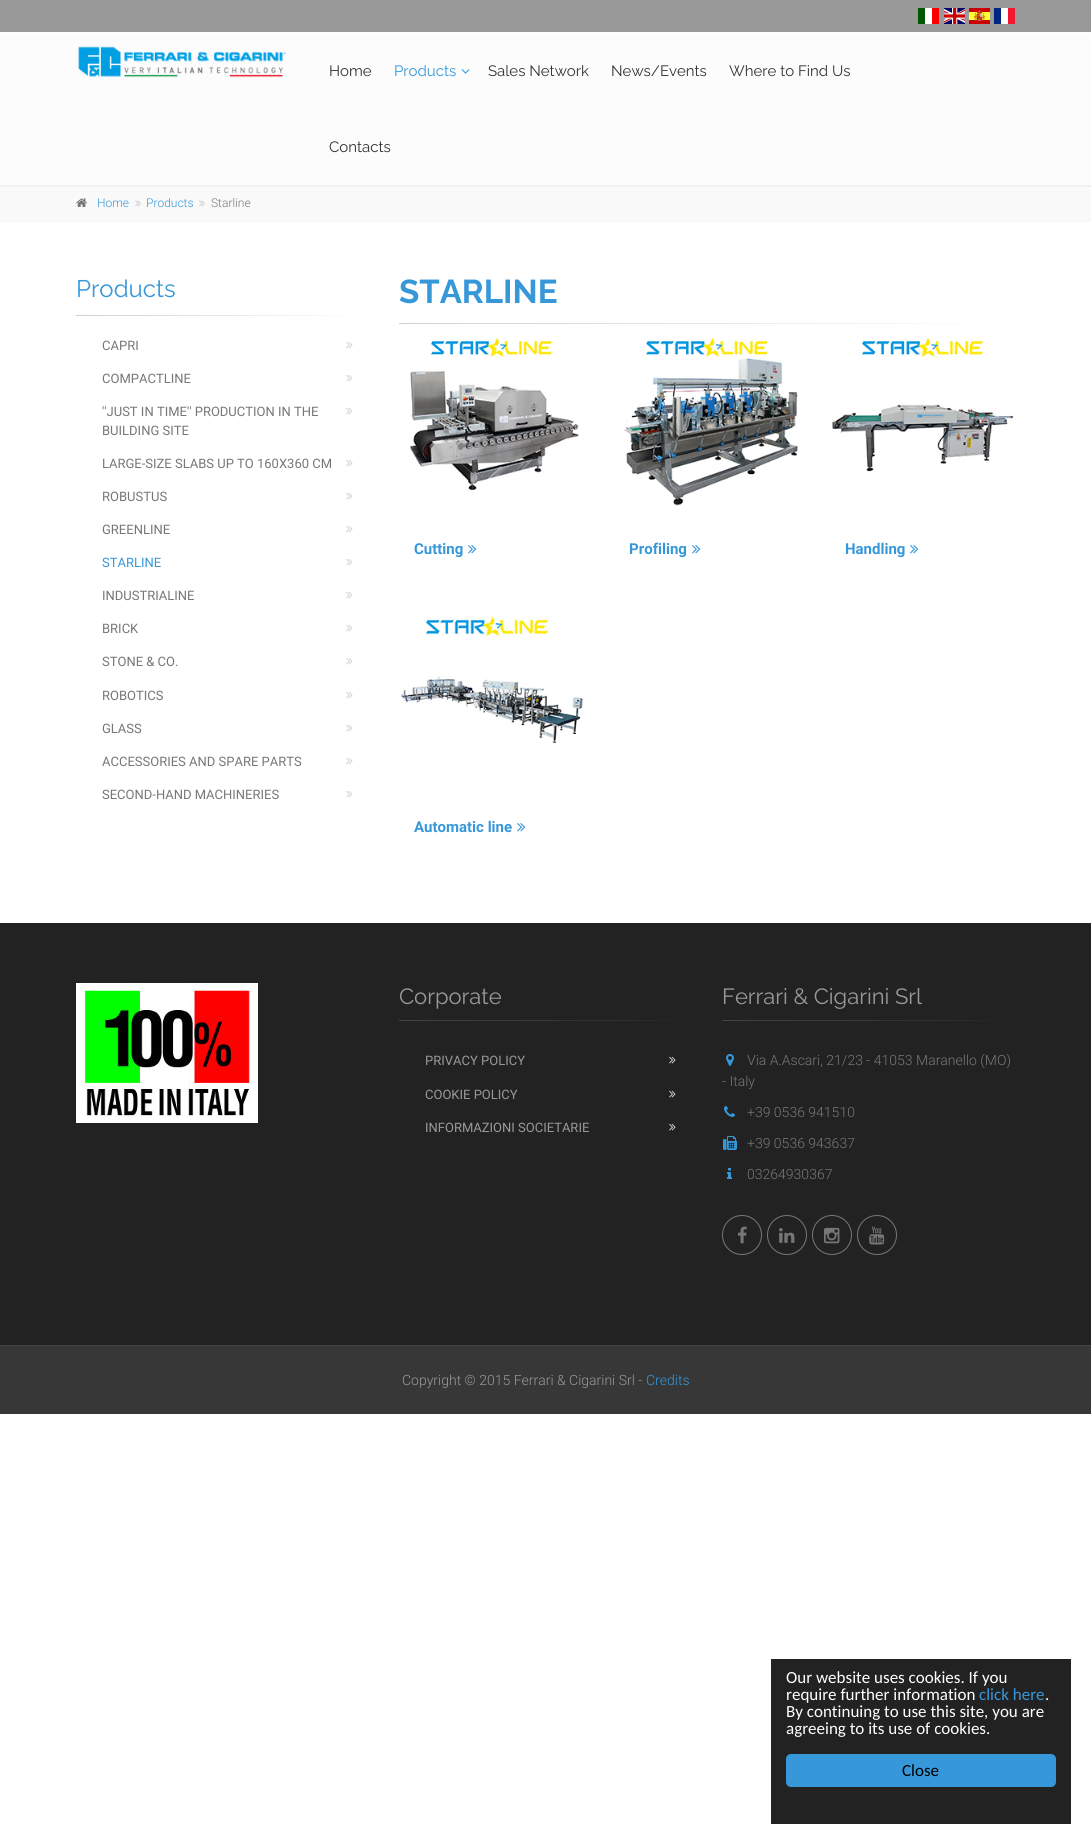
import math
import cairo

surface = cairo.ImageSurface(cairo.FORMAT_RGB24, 1091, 1844)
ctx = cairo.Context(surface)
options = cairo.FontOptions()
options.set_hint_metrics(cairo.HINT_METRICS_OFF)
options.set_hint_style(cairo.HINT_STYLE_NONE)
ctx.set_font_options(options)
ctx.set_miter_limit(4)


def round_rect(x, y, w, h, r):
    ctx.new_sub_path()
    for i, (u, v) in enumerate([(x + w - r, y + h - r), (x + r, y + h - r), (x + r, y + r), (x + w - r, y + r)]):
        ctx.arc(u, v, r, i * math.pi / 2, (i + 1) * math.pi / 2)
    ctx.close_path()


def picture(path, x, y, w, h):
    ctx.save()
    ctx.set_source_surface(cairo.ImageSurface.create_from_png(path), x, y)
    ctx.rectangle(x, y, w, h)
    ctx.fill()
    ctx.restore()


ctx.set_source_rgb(1, 1, 1)
ctx.paint()
ctx.set_source_rgb(0.6, 0.6, 0.6)
ctx.rectangle(0, 0, 1091, 32)
ctx.fill()
ctx.set_source_rgb(1, 1, 1)
ctx.rectangle(925, 8, 7, 16)
ctx.fill()
ctx.set_source_rgb(0, 0.341, 0)
ctx.rectangle(918, 8, 7, 16)
ctx.fill()
ctx.set_source_rgb(0.988, 0, 0)
ctx.rectangle(932, 8, 7, 16)
ctx.fill()
picture("img1.png", 944, 8, 21, 16)
picture("img2.png", 969, 8, 21, 16)
ctx.set_source_rgb(1, 1, 1)
ctx.rectangle(1001, 8, 7, 16)
ctx.fill()
ctx.set_source_rgb(0, 0.149, 0.498)
ctx.rectangle(994, 8, 7, 16)
ctx.fill()
ctx.set_source_rgb(0.953, 0.094, 0.188)
ctx.rectangle(1008, 8, 7, 16)
ctx.fill()
ctx.set_source_rgb(0.988, 0.988, 0.988)
ctx.rectangle(0, 33, 1091, 152)
ctx.fill()
ctx.set_source_rgb(0.945, 0.945, 0.945)
ctx.rectangle(0, 185, 1091, 2)
ctx.fill()
picture("img3.png", 78, 46, 208, 32)
ctx.select_font_face("Raleway")
ctx.set_font_size(15)
ctx.set_source_rgb(0.2, 0.2, 0.2)
ctx.move_to(329, 76)
ctx.show_text("Home")
ctx.set_source_rgb(0.212, 0.592, 0.851)
ctx.move_to(394, 76)
ctx.show_text("Products")
picture("img4.png", 461, 69, 9, 5)
ctx.set_source_rgb(0.2, 0.2, 0.2)
ctx.move_to(488, 76)
ctx.show_text("Sales Network")
ctx.move_to(611, 76)
ctx.show_text("News/Events")
ctx.move_to(729, 76)
ctx.show_text("Where to Find Us")
ctx.move_to(329, 152)
ctx.show_text("Contacts")
ctx.set_source_rgb(0.973, 0.973, 0.973)
ctx.rectangle(0, 187, 1091, 34)
ctx.fill()
ctx.set_source_rgb(0.957, 0.957, 0.957)
ctx.rectangle(0, 221, 1091, 1)
ctx.fill()
picture("img5.png", 76, 198, 11, 9)
ctx.select_font_face("Roboto Light")
ctx.set_font_size(12)
ctx.set_source_rgb(0.212, 0.592, 0.851)
ctx.move_to(97, 207)
ctx.show_text("Home")
picture("img6.png", 135, 200, 6, 7)
ctx.move_to(146, 207)
ctx.show_text("Products")
picture("img6.png", 199, 200, 6, 7)
ctx.set_source_rgb(0.467, 0.467, 0.467)
ctx.move_to(211, 207)
ctx.show_text("Starline")
ctx.select_font_face("Raleway")
ctx.set_font_size(24)
ctx.set_source_rgb(0.212, 0.592, 0.851)
ctx.move_to(76, 297)
ctx.show_text("Products")
gradient = cairo.LinearGradient(76, 316, 369, 316)
gradient.add_color_stop_rgba(0, 0.82, 0.82, 0.82, 1)
gradient.add_color_stop_rgba(0.35, 0.878, 0.878, 0.878, 1)
gradient.add_color_stop_rgba(0.7, 0.949, 0.949, 0.949, 1)
gradient.add_color_stop_rgba(1, 1, 1, 1, 1)
ctx.set_source(gradient)
ctx.rectangle(76, 315, 276, 1)
ctx.fill()
ctx.select_font_face("Roboto")
ctx.set_font_size(13)
ctx.set_source_rgb(0.467, 0.467, 0.467)
ctx.move_to(102, 350)
ctx.show_text("CAPRI")
picture("img7.png", 346, 342, 7, 7)
ctx.move_to(102, 383)
ctx.show_text("COMPACTLINE")
picture("img7.png", 346, 375, 7, 7)
ctx.move_to(102, 416)
ctx.show_text("''JUST IN TIME'' PRODUCTION IN THE")
picture("img7.png", 346, 408, 7, 7)
ctx.move_to(102, 435)
ctx.show_text("BUILDING SITE")
ctx.move_to(102, 468)
ctx.show_text("LARGE-SIZE SLABS UP TO 160X360 CM")
picture("img7.png", 346, 460, 7, 7)
ctx.move_to(102, 501)
ctx.show_text("ROBUSTUS")
picture("img7.png", 346, 493, 7, 7)
ctx.move_to(102, 534)
ctx.show_text("GREENLINE")
picture("img7.png", 346, 526, 7, 7)
ctx.set_source_rgb(0.212, 0.592, 0.851)
ctx.move_to(102, 567)
ctx.show_text("STARLINE")
picture("img7.png", 346, 559, 7, 7)
ctx.set_source_rgb(0.467, 0.467, 0.467)
ctx.move_to(102, 600)
ctx.show_text("INDUSTRIALINE")
picture("img7.png", 346, 592, 7, 7)
ctx.move_to(102, 633)
ctx.show_text("BRICK")
picture("img7.png", 346, 625, 7, 7)
ctx.move_to(102, 666)
ctx.show_text("STONE & CO.")
picture("img7.png", 346, 658, 7, 7)
ctx.move_to(102, 700)
ctx.show_text("ROBOTICS")
picture("img7.png", 346, 692, 7, 7)
ctx.move_to(102, 733)
ctx.show_text("GLASS")
picture("img7.png", 346, 725, 7, 7)
ctx.move_to(102, 766)
ctx.show_text("ACCESSORIES AND SPARE PARTS")
picture("img7.png", 346, 758, 7, 7)
ctx.move_to(102, 799)
ctx.show_text("SECOND-HAND MACHINERIES")
picture("img7.png", 346, 791, 7, 7)
ctx.select_font_face("Raleway", cairo.FONT_SLANT_NORMAL, cairo.FONT_WEIGHT_BOLD)
ctx.set_font_size(33)
ctx.set_source_rgb(0.212, 0.592, 0.851)
ctx.move_to(399, 303)
ctx.show_text("STARLINE")
gradient = cairo.LinearGradient(399, 324, 1015, 324)
gradient.add_color_stop_rgba(0, 0.82, 0.82, 0.82, 1)
gradient.add_color_stop_rgba(0.35, 0.878, 0.878, 0.878, 1)
gradient.add_color_stop_rgba(0.7, 0.949, 0.949, 0.949, 1)
gradient.add_color_stop_rgba(1, 1, 1, 1, 1)
ctx.set_source(gradient)
ctx.rectangle(399, 323, 580, 1)
ctx.fill()
picture("img8.png", 410, 338, 169, 152)
ctx.select_font_face("Roboto", cairo.FONT_SLANT_NORMAL, cairo.FONT_WEIGHT_BOLD)
ctx.set_font_size(15)
ctx.set_source_rgb(0.212, 0.592, 0.851)
ctx.move_to(414, 554)
ctx.show_text("Cutting")
picture("img9.png", 468, 545, 9, 9)
picture("img10.png", 624, 338, 174, 168)
ctx.move_to(629, 554)
ctx.show_text("Profiling")
picture("img9.png", 692, 545, 9, 9)
picture("img11.png", 832, 338, 182, 134)
ctx.move_to(845, 554)
ctx.show_text("Handling")
picture("img9.png", 910, 545, 9, 9)
picture("img12.png", 400, 616, 184, 127)
ctx.move_to(414, 832)
ctx.show_text("Automatic line")
picture("img9.png", 517, 823, 9, 9)
ctx.set_source_rgb(0.133, 0.133, 0.133)
ctx.rectangle(0, 923, 1091, 422)
ctx.fill()
picture("img13.png", 76, 983, 182, 140)
ctx.select_font_face("Raleway")
ctx.set_font_size(22)
ctx.set_source_rgb(0.6, 0.6, 0.6)
ctx.move_to(399, 1004)
ctx.show_text("Corporate")
gradient = cairo.LinearGradient(399, 1021, 692, 1021)
gradient.add_color_stop_rgba(0, 0.267, 0.267, 0.267, 1)
gradient.add_color_stop_rgba(0.35, 0.224, 0.224, 0.224, 1)
gradient.add_color_stop_rgba(0.7, 0.196, 0.196, 0.196, 1)
gradient.add_color_stop_rgba(1, 0.133, 0.133, 0.133, 1)
ctx.set_source(gradient)
ctx.rectangle(399, 1020, 279, 1)
ctx.fill()
ctx.select_font_face("Roboto")
ctx.set_font_size(13)
ctx.set_source_rgb(0.6, 0.6, 0.6)
ctx.move_to(425, 1065)
ctx.show_text("PRIVACY POLICY")
picture("img14.png", 669, 1056, 7, 8)
ctx.move_to(425, 1099)
ctx.show_text("COOKIE POLICY")
picture("img14.png", 669, 1090, 7, 8)
ctx.move_to(425, 1132)
ctx.show_text("INFORMAZIONI SOCIETARIE")
picture("img14.png", 669, 1123, 7, 8)
ctx.select_font_face("Raleway")
ctx.set_font_size(22)
ctx.move_to(722, 1004)
ctx.show_text("Ferrari & Cigarini Srl")
gradient = cairo.LinearGradient(722, 1021, 1015, 1021)
gradient.add_color_stop_rgba(0, 0.267, 0.267, 0.267, 1)
gradient.add_color_stop_rgba(0.35, 0.224, 0.224, 0.224, 1)
gradient.add_color_stop_rgba(0.7, 0.196, 0.196, 0.196, 1)
gradient.add_color_stop_rgba(1, 0.133, 0.133, 0.133, 1)
ctx.set_source(gradient)
ctx.rectangle(722, 1020, 279, 1)
ctx.fill()
picture("img15.png", 726, 1054, 8, 12)
ctx.select_font_face("Roboto Light")
ctx.set_font_size(14)
ctx.set_source_rgb(0.467, 0.467, 0.467)
ctx.move_to(747, 1065)
ctx.show_text("Via A.Ascari, 21/23 - 41053 Maranello (MO)")
ctx.move_to(722, 1086)
ctx.show_text("- Italy")
picture("img16.png", 724, 1106, 11, 11)
ctx.move_to(747, 1117)
ctx.show_text("+39 0536 941510")
picture("img17.png", 723, 1136, 14, 14)
ctx.move_to(747, 1148)
ctx.show_text("+39 0536 943637")
picture("img18.png", 727, 1168, 5, 11)
ctx.move_to(747, 1179)
ctx.show_text("03264930367")
ctx.new_path()
ctx.arc(742, 1235, 19.5, 0, 2 * math.pi)
ctx.set_line_width(1)
ctx.stroke()
picture("img19.png", 738, 1226, 9, 18)
ctx.arc(787, 1235, 19.5, 0, 2 * math.pi)
ctx.stroke()
picture("img20.png", 779, 1228, 16, 15)
ctx.arc(832, 1235, 19.5, 0, 2 * math.pi)
ctx.stroke()
picture("img21.png", 824, 1227, 16, 17)
ctx.arc(877, 1235, 19.5, 0, 2 * math.pi)
ctx.stroke()
picture("img22.png", 869, 1226, 16, 19)
ctx.set_source_rgb(0.216, 0.216, 0.216)
ctx.rectangle(0, 1346, 1091, 68)
ctx.fill()
ctx.set_source_rgb(0.271, 0.271, 0.271)
ctx.rectangle(0, 1345, 1091, 1)
ctx.fill()
ctx.set_source_rgb(0.6, 0.6, 0.6)
ctx.move_to(402, 1385)
ctx.show_text("Copyright © 2015 Ferrari & Cigarini Srl -")
ctx.set_source_rgb(0.212, 0.592, 0.851)
ctx.move_to(646, 1385)
ctx.show_text("Credits")
ctx.set_source_rgb(0.133, 0.133, 0.133)
ctx.rectangle(771, 1659, 300, 165)
ctx.fill()
ctx.select_font_face("Carlito")
ctx.set_font_size(17)
ctx.set_source_rgb(1, 1, 1)
ctx.move_to(786, 1683)
ctx.show_text("Our website uses cookies. If you")
ctx.move_to(786, 1700)
ctx.show_text("require further information")
ctx.set_source_rgb(0.212, 0.592, 0.851)
ctx.move_to(979, 1700)
ctx.show_text("click here")
ctx.set_source_rgb(1, 1, 1)
ctx.move_to(1045, 1700)
ctx.show_text(".")
ctx.move_to(786, 1717)
ctx.show_text("By continuing to use this site, you are")
ctx.move_to(786, 1734)
ctx.show_text("agreeing to its use of cookies.")
ctx.set_source_rgb(0.212, 0.592, 0.851)
round_rect(786, 1754, 270, 33, 5)
ctx.fill()
ctx.set_source_rgb(0, 0, 0)
ctx.move_to(902, 1776)
ctx.show_text("Close")
surface.write_to_png("page.png")
